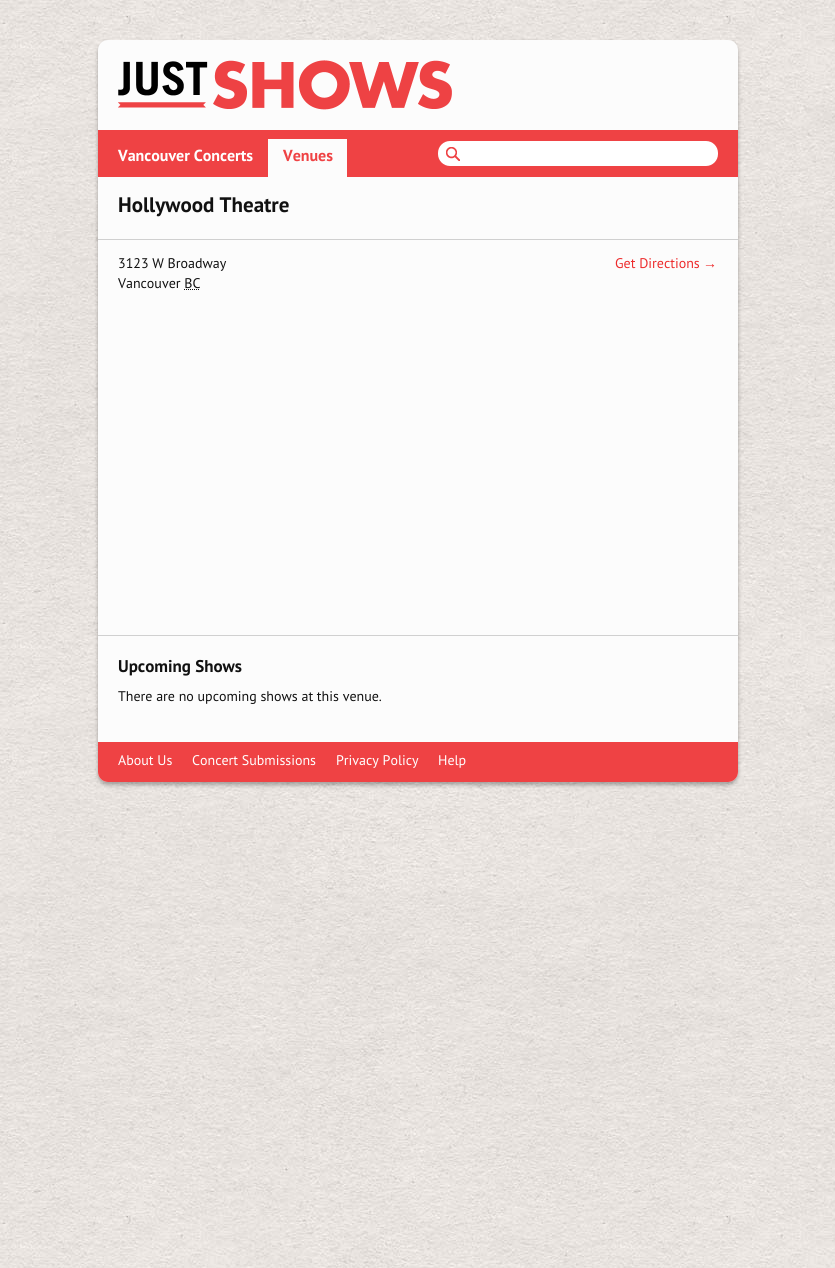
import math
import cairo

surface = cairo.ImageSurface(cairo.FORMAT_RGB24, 835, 1268)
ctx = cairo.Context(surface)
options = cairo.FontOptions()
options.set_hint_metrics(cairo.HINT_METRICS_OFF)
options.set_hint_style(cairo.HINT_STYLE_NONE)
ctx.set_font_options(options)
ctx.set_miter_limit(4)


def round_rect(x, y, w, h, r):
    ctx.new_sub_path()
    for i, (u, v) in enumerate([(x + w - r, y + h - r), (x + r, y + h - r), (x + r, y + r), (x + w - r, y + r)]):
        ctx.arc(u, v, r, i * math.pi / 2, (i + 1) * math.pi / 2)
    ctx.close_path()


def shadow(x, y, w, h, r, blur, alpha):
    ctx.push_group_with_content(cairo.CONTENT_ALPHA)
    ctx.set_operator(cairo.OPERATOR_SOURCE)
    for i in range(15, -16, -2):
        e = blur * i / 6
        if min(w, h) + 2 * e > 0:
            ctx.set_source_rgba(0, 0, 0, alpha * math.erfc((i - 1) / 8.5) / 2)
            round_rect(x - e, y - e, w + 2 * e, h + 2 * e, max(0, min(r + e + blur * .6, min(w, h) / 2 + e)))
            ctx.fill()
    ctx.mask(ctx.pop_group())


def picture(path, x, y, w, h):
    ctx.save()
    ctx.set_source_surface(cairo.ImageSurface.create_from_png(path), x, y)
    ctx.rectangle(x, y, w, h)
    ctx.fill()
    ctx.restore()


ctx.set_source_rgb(1, 1, 1)
ctx.paint()
picture("img1.png", 0, 0, 835, 1268)
ctx.set_source_rgb(0, 0, 0)
shadow(98, 43, 640, 742, 10, 2, 0.3)
ctx.set_source_rgb(0.988, 0.988, 0.988)
round_rect(98, 40, 640, 742, 10)
ctx.fill()
picture("img2.png", 118, 60, 334, 50)
ctx.set_source_rgb(0.937, 0.259, 0.267)
ctx.rectangle(98, 130, 640, 47)
ctx.fill()
ctx.select_font_face("PT Sans", cairo.FONT_SLANT_NORMAL, cairo.FONT_WEIGHT_BOLD)
ctx.set_font_size(16)
ctx.set_source_rgb(1, 1, 1)
ctx.move_to(118, 161)
ctx.show_text("Vancouver Concerts")
ctx.set_source_rgb(0.988, 0.988, 0.988)
ctx.rectangle(268, 139, 79, 38)
ctx.fill()
ctx.set_source_rgb(0.937, 0.259, 0.267)
ctx.move_to(283, 161)
ctx.show_text("Venues")
ctx.set_source_rgb(1, 1, 1)
round_rect(438, 141, 280, 25, 12)
ctx.fill()
picture("img3.png", 446, 147, 14, 14)
ctx.set_font_size(21)
ctx.set_source_rgb(0.067, 0.067, 0.067)
ctx.move_to(118, 212)
ctx.show_text("Hollywood Theatre")
ctx.set_source_rgb(0.816, 0.816, 0.816)
ctx.rectangle(98, 239, 640, 1)
ctx.fill()
ctx.rectangle(98, 635, 640, 1)
ctx.fill()
ctx.select_font_face("PT Sans")
ctx.set_font_size(14)
ctx.set_source_rgb(0.067, 0.067, 0.067)
ctx.move_to(118, 268)
ctx.show_text("3123 W Broadway")
ctx.move_to(118, 288)
ctx.show_text("Vancouver BC")
ctx.new_path()
ctx.move_to(184, 289.5)
ctx.line_to(200, 289.5)
ctx.set_line_width(1)
ctx.set_dash([1, 1])
ctx.stroke()
ctx.set_source_rgb(0.929, 0.169, 0.173)
ctx.move_to(615, 268)
ctx.show_text("Get Directions")
ctx.select_font_face("Liberation Sans")
ctx.move_to(703, 268)
ctx.show_text("→")
ctx.select_font_face("PT Sans", cairo.FONT_SLANT_NORMAL, cairo.FONT_WEIGHT_BOLD)
ctx.set_font_size(17)
ctx.set_source_rgb(0.067, 0.067, 0.067)
ctx.move_to(118, 672)
ctx.show_text("Upcoming Shows")
ctx.select_font_face("PT Sans")
ctx.set_font_size(14)
ctx.move_to(118, 701)
ctx.show_text("There are no upcoming shows at this venue.")
ctx.set_source_rgb(0.937, 0.259, 0.267)
ctx.new_path()
ctx.move_to(98, 742)
ctx.line_to(738, 742)
ctx.line_to(738, 772)
ctx.curve_to(738, 777.5, 733.5, 782, 728, 782)
ctx.line_to(108, 782)
ctx.curve_to(102.5, 782, 98, 777.5, 98, 772)
ctx.close_path()
ctx.fill()
ctx.set_source_rgb(1, 1, 1)
ctx.move_to(118, 765)
ctx.show_text("About Us")
ctx.move_to(192, 765)
ctx.show_text("Concert Submissions")
ctx.move_to(336, 765)
ctx.show_text("Privacy Policy")
ctx.move_to(438, 765)
ctx.show_text("Help")
surface.write_to_png("page.png")
